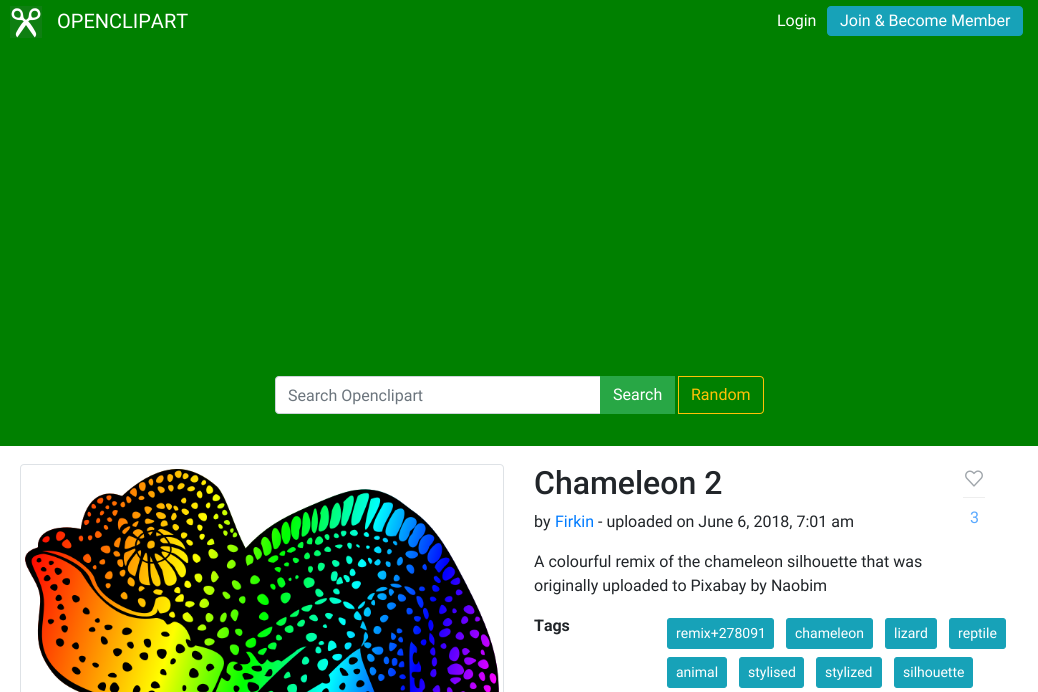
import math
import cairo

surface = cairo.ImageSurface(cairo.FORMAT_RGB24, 1038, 692)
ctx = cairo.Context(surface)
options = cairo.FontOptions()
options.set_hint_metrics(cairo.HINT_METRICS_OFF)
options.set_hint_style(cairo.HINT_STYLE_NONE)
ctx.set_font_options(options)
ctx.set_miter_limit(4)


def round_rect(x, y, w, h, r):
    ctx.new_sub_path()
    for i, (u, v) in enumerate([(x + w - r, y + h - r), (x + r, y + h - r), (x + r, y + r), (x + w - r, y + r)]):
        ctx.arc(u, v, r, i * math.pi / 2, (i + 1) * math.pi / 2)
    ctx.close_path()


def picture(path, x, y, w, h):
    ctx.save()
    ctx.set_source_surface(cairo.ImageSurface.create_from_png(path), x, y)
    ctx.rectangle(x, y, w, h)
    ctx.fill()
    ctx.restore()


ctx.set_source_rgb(1, 1, 1)
ctx.paint()
ctx.set_source_rgb(0, 0.502, 0)
ctx.rectangle(0, 0, 1038, 446)
ctx.fill()
picture("img1.png", 10, 6, 32, 32)
ctx.select_font_face("Roboto")
ctx.set_font_size(20)
ctx.set_source_rgb(1, 1, 1)
ctx.move_to(57, 28)
ctx.show_text("OPENCLIPART")
ctx.set_font_size(16)
ctx.move_to(777, 26)
ctx.show_text("Login")
ctx.set_source_rgb(0.09, 0.635, 0.722)
round_rect(827.5, 6.5, 195, 29, 3.5)
ctx.fill_preserve()
ctx.set_line_width(1)
ctx.stroke()
ctx.set_source_rgb(1, 1, 1)
ctx.move_to(840, 26)
ctx.show_text("Join & Become Member")
ctx.new_path()
ctx.move_to(279, 376.5)
ctx.line_to(600.5, 376.5)
ctx.line_to(600.5, 413.5)
ctx.line_to(279, 413.5)
ctx.curve_to(277, 413.5, 275.5, 412, 275.5, 410)
ctx.line_to(275.5, 380)
ctx.curve_to(275.5, 378, 277, 376.5, 279, 376.5)
ctx.close_path()
ctx.fill_preserve()
ctx.set_source_rgb(0.808, 0.831, 0.855)
ctx.stroke()
ctx.set_source_rgb(0.424, 0.459, 0.49)
ctx.move_to(288, 401)
ctx.show_text("Search Openclipart")
ctx.set_source_rgb(0.157, 0.655, 0.271)
ctx.rectangle(600, 376, 75, 38)
ctx.fill()
ctx.set_source_rgb(1, 1, 1)
ctx.move_to(613, 400)
ctx.show_text("Search")
ctx.new_path()
ctx.move_to(678.5, 376.5)
ctx.line_to(760, 376.5)
ctx.curve_to(762, 376.5, 763.5, 378, 763.5, 380)
ctx.line_to(763.5, 410)
ctx.curve_to(763.5, 412, 762, 413.5, 760, 413.5)
ctx.line_to(678.5, 413.5)
ctx.close_path()
ctx.set_source_rgb(1, 0.757, 0.027)
ctx.stroke()
ctx.move_to(691, 400)
ctx.show_text("Random")
round_rect(20.5, 464.5, 483, 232, 3.5)
ctx.set_source_rgb(0.871, 0.886, 0.902)
ctx.stroke()
picture("img2.png", 25, 469, 474, 223)
ctx.select_font_face("Roboto Medium")
ctx.set_font_size(32)
ctx.set_source_rgb(0.129, 0.145, 0.161)
ctx.move_to(534, 494)
ctx.show_text("Chameleon 2")
ctx.select_font_face("Roboto")
ctx.set_font_size(16)
ctx.move_to(534, 527)
ctx.show_text("by")
ctx.set_source_rgb(0, 0.482, 1)
ctx.move_to(555, 527)
ctx.show_text("Firkin")
ctx.set_source_rgb(0.129, 0.145, 0.161)
ctx.move_to(598, 527)
ctx.show_text("- uploaded on June 6, 2018, 7:01 am")
ctx.move_to(534, 567)
ctx.show_text("A colourful remix of the chameleon silhouette that was")
ctx.move_to(534, 591)
ctx.show_text("originally uploaded to Pixabay by Naobim")
picture("img3.png", 965, 470, 18, 17)
ctx.set_source_rgb(0.933, 0.933, 0.933)
ctx.rectangle(963, 497, 22, 1)
ctx.fill()
ctx.set_source_rgb(0.349, 0.663, 1)
ctx.move_to(970, 523)
ctx.show_text("3")
ctx.select_font_face("Roboto", cairo.FONT_SLANT_NORMAL, cairo.FONT_WEIGHT_BOLD)
ctx.set_source_rgb(0.129, 0.145, 0.161)
ctx.move_to(534, 631)
ctx.show_text("Tags")
ctx.set_source_rgb(0.09, 0.635, 0.722)
round_rect(667.5, 618.5, 106, 30, 2.5)
ctx.fill_preserve()
ctx.stroke()
ctx.select_font_face("Roboto")
ctx.set_font_size(14)
ctx.set_source_rgb(1, 1, 1)
ctx.move_to(676, 638)
ctx.show_text("remix+278091")
ctx.set_source_rgb(0.09, 0.635, 0.722)
round_rect(786.5, 618.5, 86, 30, 2.5)
ctx.fill_preserve()
ctx.stroke()
ctx.set_source_rgb(1, 1, 1)
ctx.move_to(795, 638)
ctx.show_text("chameleon")
ctx.set_source_rgb(0.09, 0.635, 0.722)
round_rect(885.5, 618.5, 51, 30, 2.5)
ctx.fill_preserve()
ctx.stroke()
ctx.set_source_rgb(1, 1, 1)
ctx.move_to(894, 638)
ctx.show_text("lizard")
ctx.set_source_rgb(0.09, 0.635, 0.722)
round_rect(949.5, 618.5, 56, 30, 2.5)
ctx.fill_preserve()
ctx.stroke()
ctx.set_source_rgb(1, 1, 1)
ctx.move_to(958, 638)
ctx.show_text("reptile")
ctx.set_source_rgb(0.09, 0.635, 0.722)
round_rect(667.5, 657.5, 59, 30, 2.5)
ctx.fill_preserve()
ctx.stroke()
ctx.set_source_rgb(1, 1, 1)
ctx.move_to(676, 677)
ctx.show_text("animal")
ctx.set_source_rgb(0.09, 0.635, 0.722)
round_rect(739.5, 657.5, 64, 30, 2.5)
ctx.fill_preserve()
ctx.stroke()
ctx.set_source_rgb(1, 1, 1)
ctx.move_to(748, 677)
ctx.show_text("stylised")
ctx.set_source_rgb(0.09, 0.635, 0.722)
round_rect(816.5, 657.5, 65, 30, 2.5)
ctx.fill_preserve()
ctx.stroke()
ctx.set_source_rgb(1, 1, 1)
ctx.move_to(825, 677)
ctx.show_text("stylized")
ctx.set_source_rgb(0.09, 0.635, 0.722)
round_rect(894.5, 657.5, 78, 30, 2.5)
ctx.fill_preserve()
ctx.stroke()
ctx.set_source_rgb(1, 1, 1)
ctx.move_to(903, 677)
ctx.show_text("silhouette")
surface.write_to_png("page.png")
